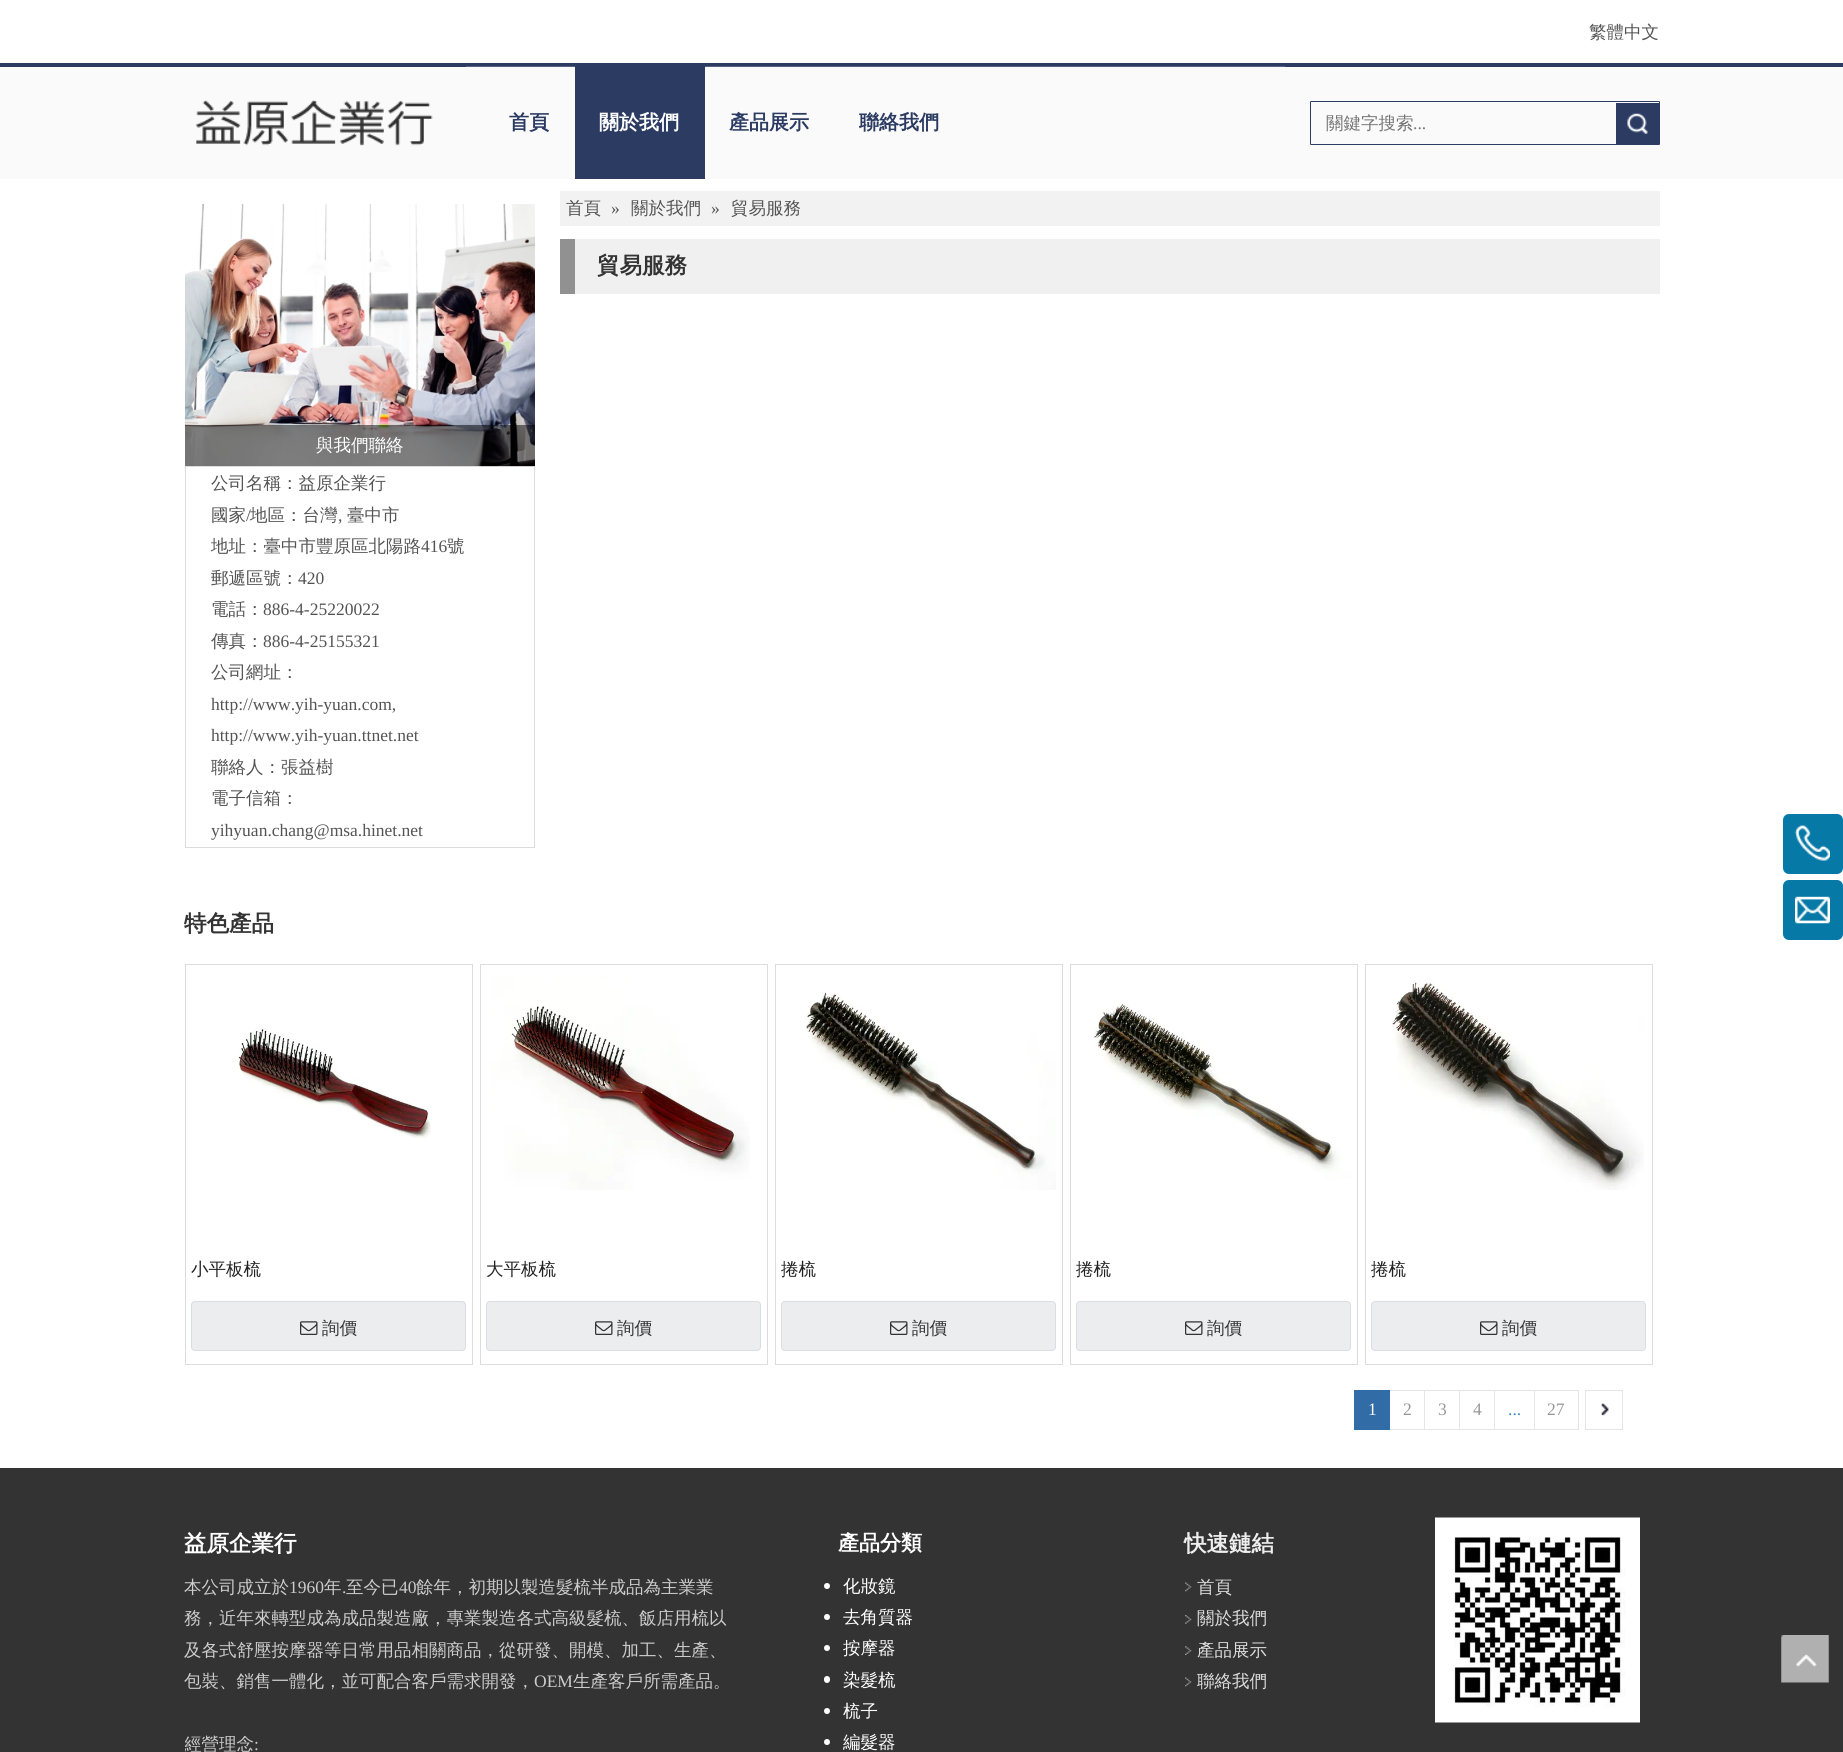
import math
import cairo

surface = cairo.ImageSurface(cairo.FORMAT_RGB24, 1843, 1752)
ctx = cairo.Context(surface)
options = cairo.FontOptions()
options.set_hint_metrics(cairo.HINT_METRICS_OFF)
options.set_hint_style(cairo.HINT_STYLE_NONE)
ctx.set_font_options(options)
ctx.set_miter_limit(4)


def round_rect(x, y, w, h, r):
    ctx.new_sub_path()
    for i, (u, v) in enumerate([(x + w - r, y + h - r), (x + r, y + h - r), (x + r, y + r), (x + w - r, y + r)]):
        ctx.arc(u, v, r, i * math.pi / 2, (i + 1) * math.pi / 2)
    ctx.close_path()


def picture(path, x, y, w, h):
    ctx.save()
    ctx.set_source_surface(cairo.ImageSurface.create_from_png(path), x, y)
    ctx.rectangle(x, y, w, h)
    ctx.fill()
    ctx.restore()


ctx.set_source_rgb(1, 1, 1)
ctx.paint()
ctx.select_font_face("WenQuanYi Zen Hei Medium")
ctx.set_font_size(17.5)
ctx.set_source_rgb(0.329, 0.329, 0.329)
ctx.move_to(1589, 38)
ctx.show_text("繁體中文")
ctx.set_source_rgb(0.98, 0.98, 0.98)
ctx.rectangle(0, 67, 1843, 112)
ctx.fill()
ctx.set_source_rgb(0.169, 0.231, 0.384)
ctx.rectangle(0, 63, 1843, 4)
ctx.fill()
ctx.set_source_rgb(0.333, 0.384, 0.506)
ctx.rectangle(466, 66, 819, 1)
ctx.fill()
picture("img1.png", 196, 100, 237, 46)
ctx.select_font_face("WenQuanYi Zen Hei", cairo.FONT_SLANT_NORMAL, cairo.FONT_WEIGHT_BOLD)
ctx.set_font_size(20)
ctx.set_source_rgb(0.169, 0.231, 0.384)
ctx.move_to(509, 129)
ctx.show_text("首頁")
ctx.rectangle(575, 66, 130, 113)
ctx.fill()
ctx.set_source_rgb(1, 1, 1)
ctx.move_to(599, 129)
ctx.show_text("關於我們")
ctx.set_source_rgb(0.169, 0.231, 0.384)
ctx.move_to(729, 129)
ctx.show_text("產品展示")
ctx.move_to(859, 129)
ctx.show_text("聯絡我們")
round_rect(1310.5, 101.5, 349, 43, 0.5)
ctx.set_line_width(1)
ctx.stroke()
ctx.select_font_face("WenQuanYi Zen Hei Medium")
ctx.set_font_size(17.5)
ctx.set_source_rgb(0.459, 0.459, 0.459)
ctx.move_to(1326, 129)
ctx.show_text("關鍵字搜索")
ctx.select_font_face("Liberation Serif")
ctx.move_to(1413, 129)
ctx.show_text("...")
ctx.set_source_rgb(0.169, 0.231, 0.384)
ctx.rectangle(1616, 103, 43, 41)
ctx.fill()
picture("img2.png", 1627, 113, 21, 21)
ctx.set_source_rgb(0.949, 0.949, 0.949)
ctx.rectangle(560, 191, 1100, 35)
ctx.fill()
ctx.select_font_face("WenQuanYi Zen Hei Medium")
ctx.set_source_rgb(0.329, 0.329, 0.329)
ctx.move_to(566, 214)
ctx.show_text("首頁")
ctx.select_font_face("Liberation Serif")
ctx.move_to(611, 214)
ctx.show_text("»")
ctx.select_font_face("WenQuanYi Zen Hei Medium")
ctx.move_to(631, 214)
ctx.show_text("關於我們")
ctx.select_font_face("Liberation Serif")
ctx.move_to(711, 214)
ctx.show_text("»")
ctx.select_font_face("WenQuanYi Zen Hei Medium")
ctx.move_to(731, 214)
ctx.show_text("貿易服務")
ctx.set_source_rgb(0.941, 0.941, 0.941)
ctx.rectangle(575, 239, 1085, 55)
ctx.fill()
ctx.set_source_rgb(0.569, 0.569, 0.569)
ctx.rectangle(560, 239, 15, 55)
ctx.fill()
ctx.select_font_face("WenQuanYi Zen Hei", cairo.FONT_SLANT_NORMAL, cairo.FONT_WEIGHT_BOLD)
ctx.set_font_size(22.5)
ctx.set_source_rgb(0.2, 0.2, 0.2)
ctx.move_to(597, 273)
ctx.show_text("貿易服務")
ctx.rectangle(185.5, 466.5, 349, 381)
ctx.set_source_rgb(0.867, 0.867, 0.867)
ctx.stroke()
picture("img3.png", 185, 203, 350, 264)
ctx.set_source_rgba(0, 0, 0, 0.5)
ctx.rectangle(185, 425, 350, 41)
ctx.fill()
ctx.select_font_face("WenQuanYi Zen Hei Medium")
ctx.set_font_size(17.5)
ctx.set_source_rgb(1, 1, 1)
ctx.move_to(316, 451)
ctx.show_text("與我們聯絡")
ctx.set_source_rgb(0.329, 0.329, 0.329)
ctx.move_to(211, 489)
ctx.show_text("公司名稱：益原企業行")
ctx.move_to(211, 521)
ctx.show_text("國家")
ctx.select_font_face("Liberation Serif")
ctx.move_to(246, 521)
ctx.show_text("/")
ctx.select_font_face("WenQuanYi Zen Hei Medium")
ctx.move_to(250, 521)
ctx.show_text("地區：台灣")
ctx.select_font_face("Liberation Serif")
ctx.move_to(338, 521)
ctx.show_text(",")
ctx.select_font_face("WenQuanYi Zen Hei Medium")
ctx.move_to(347, 521)
ctx.show_text("臺中市")
ctx.move_to(211, 552)
ctx.show_text("地址：臺中市豐原區北陽路")
ctx.select_font_face("Liberation Serif")
ctx.move_to(421, 552)
ctx.show_text("416")
ctx.select_font_face("WenQuanYi Zen Hei Medium")
ctx.move_to(447, 552)
ctx.show_text("號")
ctx.move_to(211, 584)
ctx.show_text("郵遞區號：")
ctx.select_font_face("Liberation Serif")
ctx.move_to(298, 584)
ctx.show_text("420")
ctx.select_font_face("WenQuanYi Zen Hei Medium")
ctx.move_to(211, 615)
ctx.show_text("電話：")
ctx.select_font_face("Liberation Serif")
ctx.move_to(263, 615)
ctx.show_text("886-4-25220022")
ctx.select_font_face("WenQuanYi Zen Hei Medium")
ctx.move_to(211, 647)
ctx.show_text("傳真：")
ctx.select_font_face("Liberation Serif")
ctx.move_to(263, 647)
ctx.show_text("886-4-25155321")
ctx.select_font_face("WenQuanYi Zen Hei Medium")
ctx.move_to(211, 678)
ctx.show_text("公司網址：")
ctx.select_font_face("Liberation Serif")
ctx.move_to(211, 710)
ctx.show_text("http://www.yih-yuan.com,")
ctx.move_to(211, 741)
ctx.show_text("http://www.yih-yuan.ttnet.net")
ctx.select_font_face("WenQuanYi Zen Hei Medium")
ctx.move_to(211, 773)
ctx.show_text("聯絡人：張益樹")
ctx.move_to(211, 804)
ctx.show_text("電子信箱：")
ctx.select_font_face("Liberation Serif")
ctx.move_to(211, 836)
ctx.show_text("yihyuan.chang@msa.hinet.net")
ctx.select_font_face("WenQuanYi Zen Hei", cairo.FONT_SLANT_NORMAL, cairo.FONT_WEIGHT_BOLD)
ctx.set_font_size(22.5)
ctx.set_source_rgb(0.2, 0.2, 0.2)
ctx.move_to(184, 931)
ctx.show_text("特色產品")
ctx.rectangle(185.5, 964.5, 287, 400)
ctx.set_source_rgb(0.863, 0.863, 0.863)
ctx.stroke()
picture("img4.png", 238, 1027, 193, 112)
ctx.select_font_face("WenQuanYi Zen Hei Medium")
ctx.set_font_size(17.5)
ctx.set_source_rgb(0.133, 0.133, 0.133)
ctx.move_to(191, 1275)
ctx.show_text("小平板梳")
ctx.set_source_rgb(0.918, 0.929, 0.937)
round_rect(191.5, 1301.5, 274, 49, 3.5)
ctx.fill_preserve()
ctx.set_source_rgb(0.847, 0.867, 0.902)
ctx.stroke()
picture("img5.png", 300, 1321, 18, 14)
ctx.set_source_rgb(0.2, 0.2, 0.2)
ctx.move_to(322, 1334)
ctx.show_text("詢價")
ctx.rectangle(480.5, 964.5, 287, 400)
ctx.set_source_rgb(0.863, 0.863, 0.863)
ctx.stroke()
picture("img6.png", 491, 975, 259, 215)
ctx.set_source_rgb(0.133, 0.133, 0.133)
ctx.move_to(486, 1275)
ctx.show_text("大平板梳")
ctx.set_source_rgb(0.918, 0.929, 0.937)
round_rect(486.5, 1301.5, 274, 49, 3.5)
ctx.fill_preserve()
ctx.set_source_rgb(0.847, 0.867, 0.902)
ctx.stroke()
picture("img5.png", 595, 1321, 18, 14)
ctx.set_source_rgb(0.2, 0.2, 0.2)
ctx.move_to(617, 1334)
ctx.show_text("詢價")
ctx.rectangle(775.5, 964.5, 287, 400)
ctx.set_source_rgb(0.863, 0.863, 0.863)
ctx.stroke()
picture("img7.png", 806, 992, 250, 198)
ctx.set_source_rgb(0.133, 0.133, 0.133)
ctx.move_to(781, 1275)
ctx.show_text("捲梳")
ctx.set_source_rgb(0.918, 0.929, 0.937)
round_rect(781.5, 1301.5, 274, 49, 3.5)
ctx.fill_preserve()
ctx.set_source_rgb(0.847, 0.867, 0.902)
ctx.stroke()
picture("img5.png", 890, 1321, 18, 14)
ctx.set_source_rgb(0.2, 0.2, 0.2)
ctx.move_to(912, 1334)
ctx.show_text("詢價")
ctx.rectangle(1070.5, 964.5, 287, 400)
ctx.set_source_rgb(0.863, 0.863, 0.863)
ctx.stroke()
picture("img8.png", 1093, 1004, 258, 175)
ctx.set_source_rgb(0.133, 0.133, 0.133)
ctx.move_to(1076, 1275)
ctx.show_text("捲梳")
ctx.set_source_rgb(0.918, 0.929, 0.937)
round_rect(1076.5, 1301.5, 274, 49, 3.5)
ctx.fill_preserve()
ctx.set_source_rgb(0.847, 0.867, 0.902)
ctx.stroke()
picture("img5.png", 1185, 1321, 18, 14)
ctx.set_source_rgb(0.2, 0.2, 0.2)
ctx.move_to(1207, 1334)
ctx.show_text("詢價")
ctx.rectangle(1365.5, 964.5, 287, 400)
ctx.set_source_rgb(0.863, 0.863, 0.863)
ctx.stroke()
picture("img9.png", 1392, 982, 252, 208)
ctx.set_source_rgb(0.133, 0.133, 0.133)
ctx.move_to(1371, 1275)
ctx.show_text("捲梳")
ctx.set_source_rgb(0.918, 0.929, 0.937)
round_rect(1371.5, 1301.5, 274, 49, 3.5)
ctx.fill_preserve()
ctx.set_source_rgb(0.847, 0.867, 0.902)
ctx.stroke()
picture("img5.png", 1480, 1321, 18, 14)
ctx.set_source_rgb(0.2, 0.2, 0.2)
ctx.move_to(1502, 1334)
ctx.show_text("詢價")
ctx.rectangle(1389.5, 1390.5, 35, 39)
ctx.set_source_rgb(0.898, 0.898, 0.898)
ctx.stroke()
ctx.set_source_rgb(0.196, 0.424, 0.651)
ctx.rectangle(1354, 1390, 36, 40)
ctx.fill()
ctx.select_font_face("Liberation Serif")
ctx.set_source_rgb(1, 1, 1)
ctx.move_to(1368, 1415)
ctx.show_text("1")
ctx.set_source_rgb(0.596, 0.596, 0.596)
ctx.move_to(1403, 1415)
ctx.show_text("2")
ctx.rectangle(1424.5, 1390.5, 35, 39)
ctx.set_source_rgb(0.898, 0.898, 0.898)
ctx.stroke()
ctx.set_source_rgb(0.596, 0.596, 0.596)
ctx.move_to(1438, 1415)
ctx.show_text("3")
ctx.rectangle(1459.5, 1390.5, 35, 39)
ctx.set_source_rgb(0.898, 0.898, 0.898)
ctx.stroke()
ctx.set_source_rgb(0.596, 0.596, 0.596)
ctx.move_to(1473, 1415)
ctx.show_text("4")
ctx.rectangle(1494.5, 1390.5, 40, 39)
ctx.set_source_rgb(0.898, 0.898, 0.898)
ctx.stroke()
ctx.set_source_rgb(0.259, 0.545, 0.792)
ctx.move_to(1508, 1415)
ctx.show_text("...")
ctx.rectangle(1534.5, 1390.5, 44, 39)
ctx.set_source_rgb(0.898, 0.898, 0.898)
ctx.stroke()
ctx.set_source_rgb(0.596, 0.596, 0.596)
ctx.move_to(1547, 1415)
ctx.show_text("27")
picture("img10.png", 1601, 1403, 8, 13)
ctx.rectangle(1585.5, 1390.5, 37, 39)
ctx.set_source_rgb(0.898, 0.898, 0.898)
ctx.stroke()
ctx.set_source_rgb(0.2, 0.2, 0.2)
ctx.rectangle(0, 1468, 1843, 284)
ctx.fill()
ctx.set_source_rgb(0.031, 0.475, 0.655)
round_rect(1783, 814, 60, 60, 6)
ctx.fill()
picture("img11.png", 1795, 825, 35, 36)
round_rect(1783, 880, 60, 60, 6)
ctx.fill()
picture("img12.png", 1795, 896, 35, 28)
ctx.select_font_face("WenQuanYi Zen Hei", cairo.FONT_SLANT_NORMAL, cairo.FONT_WEIGHT_BOLD)
ctx.set_font_size(22.5)
ctx.set_source_rgb(1, 1, 1)
ctx.move_to(184, 1551)
ctx.show_text("益原企業行")
ctx.select_font_face("WenQuanYi Zen Hei Medium")
ctx.set_font_size(17.5)
ctx.set_source_rgb(0.8, 0.8, 0.8)
ctx.move_to(184, 1593)
ctx.show_text("本公司成立於")
ctx.select_font_face("Liberation Serif")
ctx.move_to(289, 1593)
ctx.show_text("1960")
ctx.select_font_face("WenQuanYi Zen Hei Medium")
ctx.move_to(324, 1593)
ctx.show_text("年")
ctx.select_font_face("Liberation Serif")
ctx.move_to(342, 1593)
ctx.show_text(".")
ctx.select_font_face("WenQuanYi Zen Hei Medium")
ctx.move_to(346, 1593)
ctx.show_text("至今已")
ctx.select_font_face("Liberation Serif")
ctx.move_to(399, 1593)
ctx.show_text("40")
ctx.select_font_face("WenQuanYi Zen Hei Medium")
ctx.move_to(416, 1593)
ctx.show_text("餘年，初期以製造髮梳半成品為主業業")
ctx.move_to(184, 1624)
ctx.show_text("務，近年來轉型成為成品製造廠，專業製造各式高級髮梳、飯店用梳以")
ctx.move_to(184, 1656)
ctx.show_text("及各式舒壓按摩器等日常用品相關商品，從研發、開模、加工、生產、")
ctx.move_to(184, 1687)
ctx.show_text("包裝、銷售一體化，並可配合客戶需求開發，")
ctx.select_font_face("Liberation Serif")
ctx.move_to(534, 1687)
ctx.show_text("OEM")
ctx.select_font_face("WenQuanYi Zen Hei Medium")
ctx.move_to(573, 1687)
ctx.show_text("生產客戶所需產品。")
ctx.save()
ctx.rectangle(185, 1571, 556, 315)
ctx.clip()
ctx.move_to(184, 1750)
ctx.show_text("經營理念")
ctx.restore()
ctx.select_font_face("Liberation Serif")
ctx.move_to(254, 1750)
ctx.show_text(":")
ctx.select_font_face("WenQuanYi Zen Hei", cairo.FONT_SLANT_NORMAL, cairo.FONT_WEIGHT_BOLD)
ctx.set_font_size(21)
ctx.set_source_rgb(1, 1, 1)
ctx.move_to(838, 1550)
ctx.show_text("產品分類")
ctx.new_path()
ctx.arc(827, 1586, 3, 0, 2 * math.pi)
ctx.fill()
ctx.select_font_face("WenQuanYi Zen Hei Medium")
ctx.set_font_size(17.5)
ctx.move_to(843, 1592)
ctx.show_text("化妝鏡")
ctx.new_path()
ctx.arc(827, 1617, 3, 0, 2 * math.pi)
ctx.fill()
ctx.move_to(843, 1623)
ctx.show_text("去角質器")
ctx.new_path()
ctx.arc(827, 1648, 3, 0, 2 * math.pi)
ctx.fill()
ctx.move_to(843, 1654)
ctx.show_text("按摩器")
round_rect(824, 1676, 6, 7, 3)
ctx.fill()
ctx.move_to(843, 1686)
ctx.show_text("染髮梳")
ctx.new_path()
ctx.arc(827, 1711, 3, 0, 2 * math.pi)
ctx.fill()
ctx.move_to(843, 1717)
ctx.show_text("梳子")
ctx.new_path()
ctx.arc(827, 1742, 3, 0, 2 * math.pi)
ctx.fill()
ctx.move_to(843, 1748)
ctx.show_text("編髮器")
ctx.select_font_face("WenQuanYi Zen Hei", cairo.FONT_SLANT_NORMAL, cairo.FONT_WEIGHT_BOLD)
ctx.set_font_size(22.5)
ctx.set_source_rgb(0.933, 0.933, 0.933)
ctx.move_to(1184, 1551)
ctx.show_text("快速鏈結")
picture("img13.png", 1185, 1582, 7, 10)
ctx.select_font_face("WenQuanYi Zen Hei Medium")
ctx.set_font_size(17.5)
ctx.set_source_rgb(0.867, 0.867, 0.867)
ctx.move_to(1197, 1593)
ctx.show_text("首頁")
picture("img14.png", 1185, 1615, 7, 9)
ctx.move_to(1197, 1624)
ctx.show_text("關於我們")
picture("img15.png", 1185, 1646, 7, 9)
ctx.move_to(1197, 1656)
ctx.show_text("產品展示")
picture("img13.png", 1185, 1677, 7, 10)
ctx.move_to(1197, 1687)
ctx.show_text("聯絡我們")
picture("img16.png", 1435, 1517, 205, 206)
picture("img17.png", 1781, 1635, 48, 48)
surface.write_to_png("page.png")
